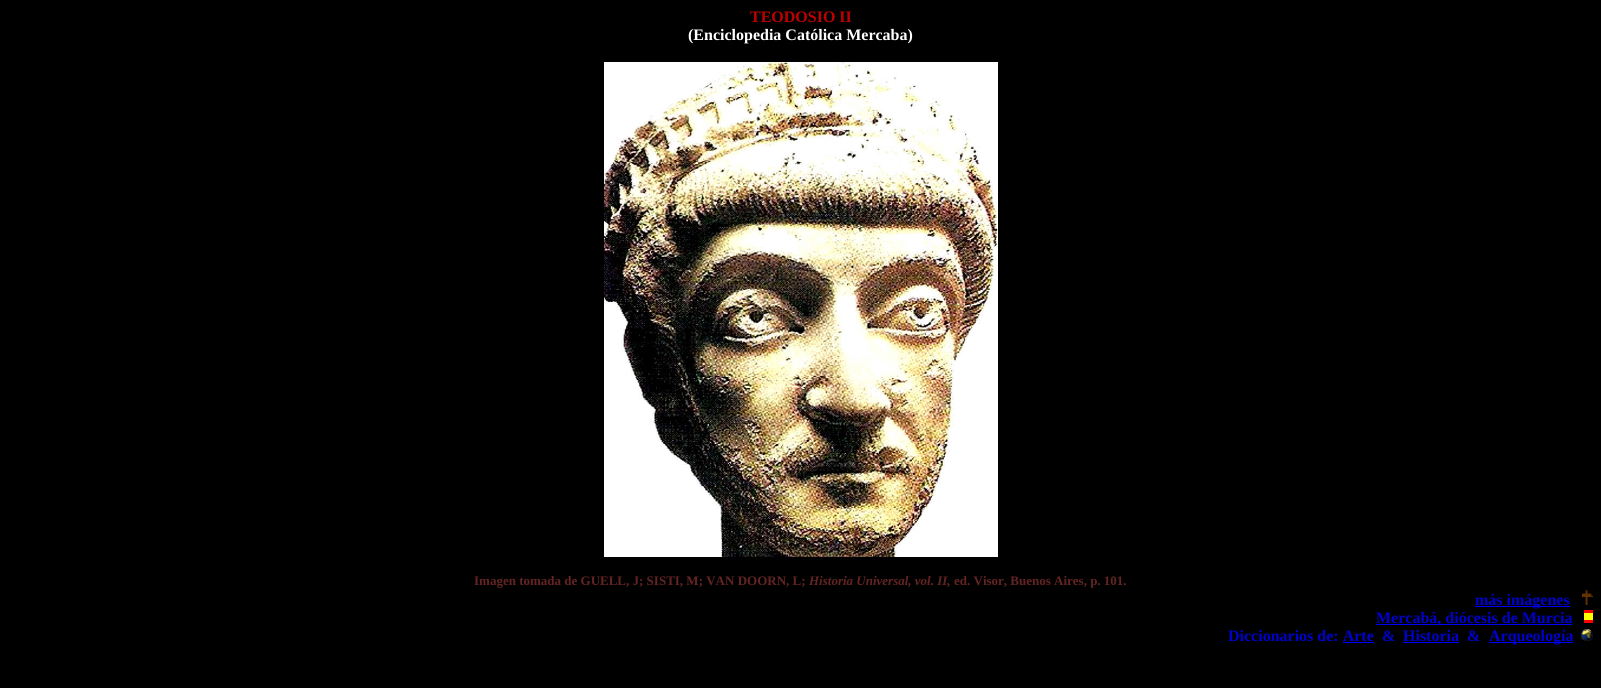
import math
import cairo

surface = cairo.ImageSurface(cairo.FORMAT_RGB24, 1601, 688)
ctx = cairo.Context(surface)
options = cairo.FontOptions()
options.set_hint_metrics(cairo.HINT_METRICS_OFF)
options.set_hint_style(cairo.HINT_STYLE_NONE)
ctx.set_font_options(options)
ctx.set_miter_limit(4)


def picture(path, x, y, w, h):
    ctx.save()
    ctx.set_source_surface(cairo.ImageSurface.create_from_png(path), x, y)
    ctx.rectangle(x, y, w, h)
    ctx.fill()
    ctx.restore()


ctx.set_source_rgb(0, 0, 0)
ctx.paint()
ctx.select_font_face("Liberation Serif", cairo.FONT_SLANT_NORMAL, cairo.FONT_WEIGHT_BOLD)
ctx.set_font_size(16)
ctx.set_source_rgb(0.753, 0, 0)
ctx.move_to(750, 22)
ctx.show_text("TEODOSIO II")
ctx.set_source_rgb(1, 1, 1)
ctx.move_to(688, 40)
ctx.show_text("(Enciclopedia Católica Mercaba)")
picture("img1.png", 604, 62, 394, 495)
ctx.set_font_size(13)
ctx.set_source_rgb(0.388, 0.141, 0.137)
ctx.move_to(474, 585)
ctx.show_text("Imagen tomada de GUELL, J; SISTI, M; VAN DOORN, L;")
ctx.select_font_face("Liberation Serif", cairo.FONT_SLANT_ITALIC, cairo.FONT_WEIGHT_BOLD)
ctx.move_to(809, 585)
ctx.show_text("Historia Universal, vol. II,")
ctx.select_font_face("Liberation Serif", cairo.FONT_SLANT_NORMAL, cairo.FONT_WEIGHT_BOLD)
ctx.move_to(954, 585)
ctx.show_text("ed. Visor, Buenos Aires, p. 101.")
ctx.set_source_rgb(0, 0, 1)
ctx.rectangle(1475, 606, 95, 1)
ctx.fill()
ctx.set_font_size(16)
ctx.set_source_rgb(0, 0, 0.8)
ctx.move_to(1475, 605)
ctx.show_text("más imágenes")
picture("img2.png", 1582, 590, 11, 15)
ctx.set_source_rgb(0, 0, 1)
ctx.rectangle(1376, 624, 196, 1)
ctx.fill()
ctx.set_source_rgb(0, 0, 0.8)
ctx.move_to(1376, 623)
ctx.show_text("Mercabá, diócesis de Murcia")
picture("img3.png", 1584, 610, 9, 13)
ctx.move_to(1228, 641)
ctx.show_text("Diccionarios de: Arte")
ctx.set_source_rgb(0, 0, 1)
ctx.rectangle(1343, 642, 31, 1)
ctx.fill()
ctx.set_source_rgb(0, 0, 0.8)
ctx.move_to(1382, 641)
ctx.show_text("&")
ctx.move_to(1403, 641)
ctx.show_text("Historia")
ctx.set_source_rgb(0, 0, 1)
ctx.rectangle(1403, 642, 56, 1)
ctx.fill()
ctx.set_source_rgb(0, 0, 0.8)
ctx.move_to(1467, 641)
ctx.show_text("&")
ctx.set_source_rgb(0, 0, 1)
ctx.rectangle(1489, 642, 84, 1)
ctx.fill()
ctx.set_source_rgb(0, 0, 0.8)
ctx.move_to(1489, 641)
ctx.show_text("Arqueología")
picture("img4.png", 1581, 629, 12, 12)
surface.write_to_png("page.png")
